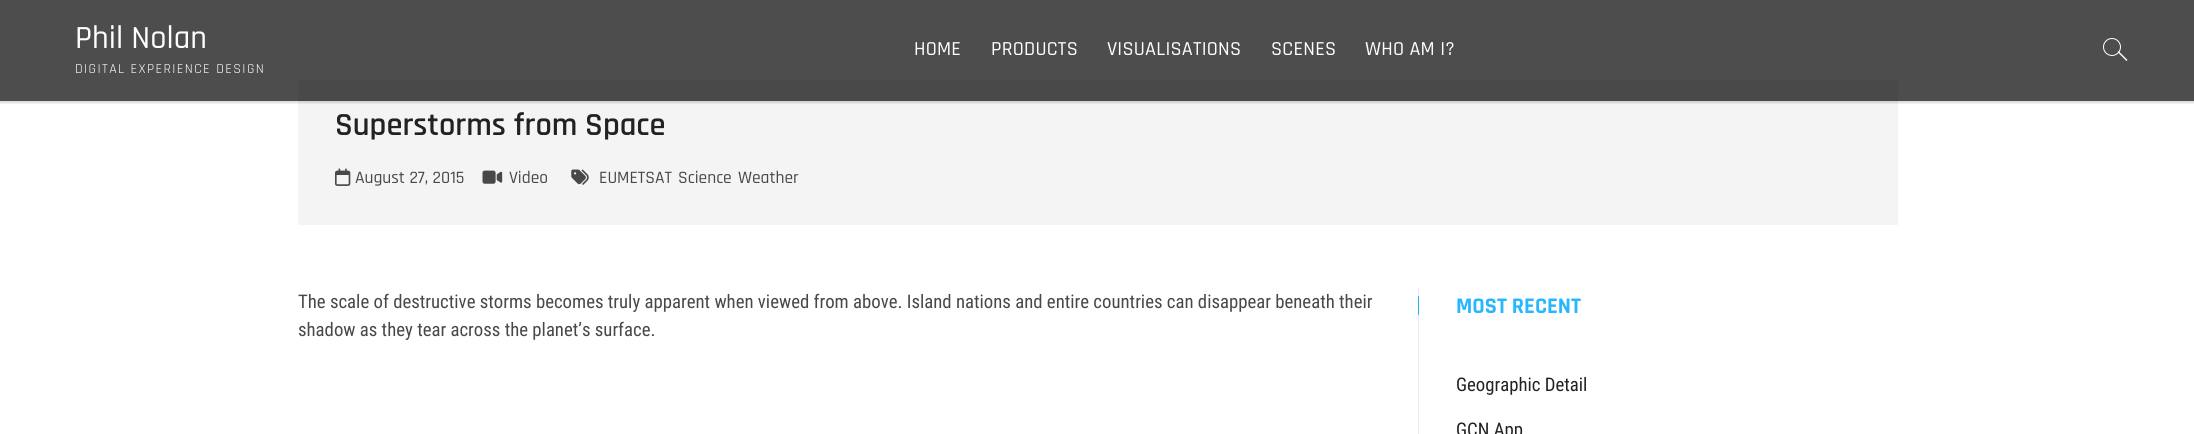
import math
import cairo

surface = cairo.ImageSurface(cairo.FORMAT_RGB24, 2194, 434)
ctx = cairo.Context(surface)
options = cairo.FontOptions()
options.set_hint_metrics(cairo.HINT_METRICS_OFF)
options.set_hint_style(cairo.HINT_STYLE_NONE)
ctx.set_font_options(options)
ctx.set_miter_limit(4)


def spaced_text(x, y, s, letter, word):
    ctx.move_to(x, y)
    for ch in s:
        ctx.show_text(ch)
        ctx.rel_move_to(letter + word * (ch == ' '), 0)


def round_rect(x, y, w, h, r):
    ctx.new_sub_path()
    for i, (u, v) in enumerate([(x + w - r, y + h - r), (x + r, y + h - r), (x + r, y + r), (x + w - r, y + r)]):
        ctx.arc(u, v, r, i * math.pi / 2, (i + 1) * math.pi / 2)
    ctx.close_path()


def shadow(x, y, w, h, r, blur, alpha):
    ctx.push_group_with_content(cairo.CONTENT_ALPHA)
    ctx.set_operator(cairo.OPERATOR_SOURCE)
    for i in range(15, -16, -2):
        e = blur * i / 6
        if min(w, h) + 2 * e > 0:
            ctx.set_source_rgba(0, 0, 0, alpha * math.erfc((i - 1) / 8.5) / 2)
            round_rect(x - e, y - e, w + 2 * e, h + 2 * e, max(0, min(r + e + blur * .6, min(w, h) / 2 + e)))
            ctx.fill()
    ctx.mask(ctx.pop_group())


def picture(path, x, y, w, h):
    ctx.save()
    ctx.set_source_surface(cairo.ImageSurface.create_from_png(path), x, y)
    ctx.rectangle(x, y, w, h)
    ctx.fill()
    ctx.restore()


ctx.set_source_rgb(1, 1, 1)
ctx.paint()
ctx.set_source_rgb(0.302, 0.302, 0.302)
ctx.rectangle(0, 0, 2194, 101)
ctx.fill()
ctx.set_source_rgb(0.957, 0.957, 0.957)
ctx.rectangle(298, 101, 1600, 124)
ctx.fill()
ctx.set_source_rgb(0.286, 0.286, 0.286)
ctx.rectangle(298, 80, 1600, 21)
ctx.fill()
ctx.save()
ctx.rectangle(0, 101, 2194, 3)
ctx.clip()
ctx.set_source_rgb(0, 0, 0)
shadow(0, 1, 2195, 102, 0, 1, 0.15)
ctx.restore()
ctx.select_font_face("Rajdhani Medium")
ctx.set_font_size(32.5)
ctx.set_source_rgb(1, 1, 1)
ctx.move_to(75, 48)
ctx.show_text("Phil Nolan")
ctx.select_font_face("Rajdhani")
ctx.set_font_size(13.75)
spaced_text(75, 73, "DIGITAL EXPERIENCE DESIGN", 1.4, 0)
ctx.select_font_face("Rajdhani Medium")
ctx.set_font_size(20)
spaced_text(914, 55, "HOME", 0.25, 0)
spaced_text(991, 55, "PRODUCTS", 0.25, 0)
spaced_text(1107, 55, "VISUALISATIONS", 0.25, 0)
spaced_text(1271, 55, "SCENES", 0.25, 0)
spaced_text(1365, 55, "WHO AM I?", 0.25, 0)
ctx.new_path()
ctx.arc(2112, 47, 8.5, 0, 2 * math.pi)
ctx.set_line_width(1)
ctx.stroke()
ctx.new_path()
ctx.move_to(2117.5, 52)
ctx.line_to(2118.5, 51)
ctx.line_to(2127.5, 60)
ctx.line_to(2126.5, 61)
ctx.close_path()
ctx.fill()
ctx.select_font_face("Rajdhani SemiBold")
ctx.set_font_size(32.5)
ctx.set_source_rgb(0.133, 0.133, 0.133)
ctx.move_to(335, 135)
ctx.show_text("Superstorms from Space")
picture("img1.png", 335, 168, 16, 18)
ctx.select_font_face("Rajdhani Medium")
ctx.set_font_size(17.5)
ctx.set_source_rgb(0.282, 0.282, 0.282)
ctx.move_to(355, 183)
ctx.show_text("August 27, 2015")
picture("img2.png", 482, 170, 21, 14)
ctx.move_to(509, 183)
ctx.show_text("Video")
picture("img3.png", 571, 169, 18, 16)
ctx.move_to(599, 183)
ctx.show_text("EUMETSAT")
ctx.move_to(678, 183)
ctx.show_text("Science")
ctx.move_to(738, 183)
ctx.show_text("Weather")
ctx.select_font_face("Roboto Condensed")
ctx.set_font_size(18.75)
ctx.move_to(298, 308)
ctx.show_text("The scale of destructive storms becomes truly apparent when viewed from above. Island nations and entire countries can disappear beneath their")
ctx.move_to(298, 336)
ctx.show_text("shadow as they tear across the planet’s surface.")
ctx.set_source_rgb(0.933, 0.933, 0.933)
ctx.rectangle(1418, 288, 1, 146)
ctx.fill()
ctx.set_source_rgb(0.157, 0.718, 1)
ctx.rectangle(1418, 296, 1, 19)
ctx.fill()
ctx.select_font_face("Rajdhani", cairo.FONT_SLANT_NORMAL, cairo.FONT_WEIGHT_BOLD)
ctx.set_font_size(22.5)
ctx.move_to(1456, 313)
ctx.show_text("MOST RECENT")
ctx.select_font_face("Roboto Condensed")
ctx.set_font_size(18.75)
ctx.set_source_rgb(0.133, 0.133, 0.133)
ctx.move_to(1456, 391)
ctx.show_text("Geographic Detail")
ctx.move_to(1456, 436)
ctx.show_text("GCN App")
surface.write_to_png("page.png")
